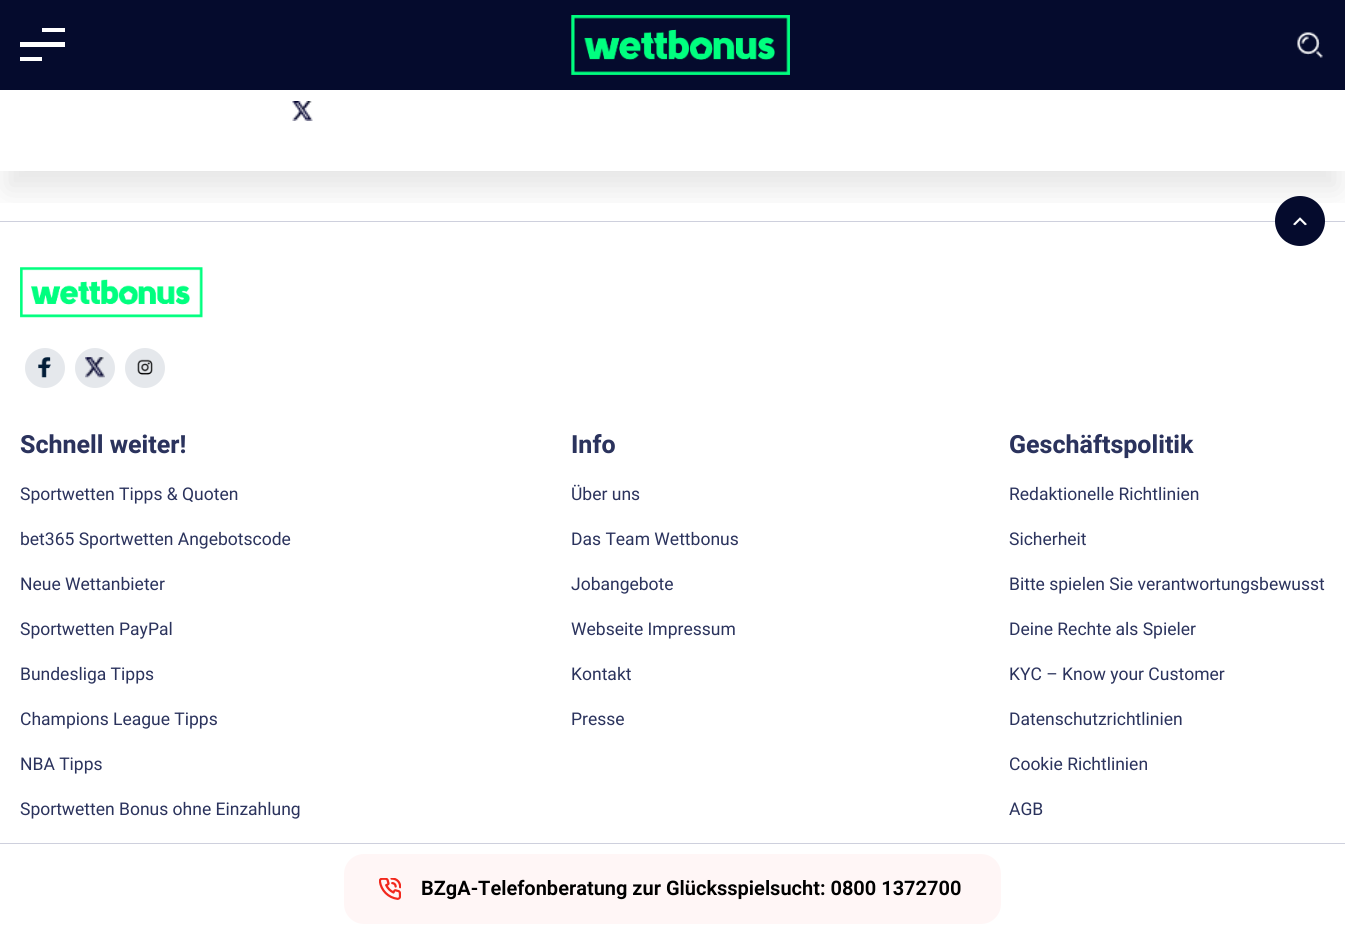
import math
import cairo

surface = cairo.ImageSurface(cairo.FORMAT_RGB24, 1345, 949)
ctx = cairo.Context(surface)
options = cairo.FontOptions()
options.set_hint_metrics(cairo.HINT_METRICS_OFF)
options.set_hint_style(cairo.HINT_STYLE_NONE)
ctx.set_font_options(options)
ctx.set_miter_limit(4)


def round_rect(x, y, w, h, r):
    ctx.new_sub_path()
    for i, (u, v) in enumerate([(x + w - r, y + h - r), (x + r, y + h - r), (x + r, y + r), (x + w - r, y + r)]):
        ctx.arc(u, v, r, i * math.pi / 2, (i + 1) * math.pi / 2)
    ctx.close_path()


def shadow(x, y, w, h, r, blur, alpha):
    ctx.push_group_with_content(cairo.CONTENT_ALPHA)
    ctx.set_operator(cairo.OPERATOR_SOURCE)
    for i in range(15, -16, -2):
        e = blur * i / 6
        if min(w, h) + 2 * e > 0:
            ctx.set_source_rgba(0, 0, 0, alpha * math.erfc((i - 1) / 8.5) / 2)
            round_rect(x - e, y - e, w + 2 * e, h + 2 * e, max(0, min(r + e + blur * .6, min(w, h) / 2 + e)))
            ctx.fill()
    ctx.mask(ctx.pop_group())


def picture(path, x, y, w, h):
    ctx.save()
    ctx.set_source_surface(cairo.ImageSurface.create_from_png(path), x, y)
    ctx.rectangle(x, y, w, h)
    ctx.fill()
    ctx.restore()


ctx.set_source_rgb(1, 1, 1)
ctx.paint()
ctx.save()
ctx.rectangle(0, 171, 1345, 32)
ctx.clip()
ctx.set_source_rgb(0, 0, 0)
shadow(6, -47, 1333, 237, 0, 15.5, 0.1)
ctx.restore()
picture("img1.png", 292, 101, 21, 20)
ctx.set_source_rgb(0.02, 0.043, 0.176)
ctx.rectangle(0, 0, 1345, 90)
ctx.fill()
ctx.set_source_rgb(1, 1, 1)
ctx.set_fill_rule(cairo.FILL_RULE_EVEN_ODD)
ctx.new_path()
ctx.move_to(65, 28)
ctx.line_to(42, 28)
ctx.line_to(42, 32)
ctx.line_to(65, 32)
ctx.close_path()
ctx.move_to(42, 57)
ctx.line_to(20, 57)
ctx.line_to(20, 61)
ctx.line_to(42, 61)
ctx.close_path()
ctx.move_to(65, 42)
ctx.line_to(20, 42)
ctx.line_to(20, 47)
ctx.line_to(65, 47)
ctx.close_path()
ctx.fill()
picture("img2.png", 571, 15, 219, 60)
picture("img3.png", 1297, 32, 26, 26)
ctx.set_source_rgb(0.808, 0.816, 0.867)
ctx.rectangle(0, 221, 1345, 1)
ctx.fill()
ctx.set_source_rgb(0.02, 0.043, 0.176)
ctx.arc(1300, 221, 25, 0, 2 * math.pi)
ctx.fill()
picture("img4.png", 1293, 217, 14, 9)
picture("img5.png", 20, 267, 183, 51)
ctx.set_source_rgb(0.898, 0.91, 0.922)
ctx.arc(45, 368, 20, 0, 2 * math.pi)
ctx.fill()
picture("img6.png", 38, 357, 13, 21)
ctx.arc(95, 368, 20, 0, 2 * math.pi)
ctx.fill()
picture("img7.png", 85, 357, 20, 21)
ctx.arc(145, 368, 20, 0, 2 * math.pi)
ctx.fill()
picture("img8.png", 137, 359, 16, 16)
ctx.select_font_face("Heebo", cairo.FONT_SLANT_NORMAL, cairo.FONT_WEIGHT_BOLD)
ctx.set_font_size(25)
ctx.set_source_rgb(0.169, 0.2, 0.365)
ctx.move_to(20, 453)
ctx.show_text("Schnell weiter!")
ctx.select_font_face("Heebo")
ctx.set_font_size(17.5)
ctx.move_to(20, 500)
ctx.show_text("Sportwetten Tipps & Quoten")
ctx.move_to(20, 545)
ctx.show_text("bet365 Sportwetten Angebotscode")
ctx.move_to(20, 590)
ctx.show_text("Neue Wettanbieter")
ctx.move_to(20, 635)
ctx.show_text("Sportwetten PayPal")
ctx.move_to(20, 680)
ctx.show_text("Bundesliga Tipps")
ctx.move_to(20, 725)
ctx.show_text("Champions League Tipps")
ctx.move_to(20, 770)
ctx.show_text("NBA Tipps")
ctx.move_to(20, 815)
ctx.show_text("Sportwetten Bonus ohne Einzahlung")
ctx.select_font_face("Heebo", cairo.FONT_SLANT_NORMAL, cairo.FONT_WEIGHT_BOLD)
ctx.set_font_size(25)
ctx.move_to(571, 453)
ctx.show_text("Info")
ctx.select_font_face("Heebo")
ctx.set_font_size(17.5)
ctx.move_to(571, 500)
ctx.show_text("Über uns")
ctx.move_to(571, 545)
ctx.show_text("Das Team Wettbonus")
ctx.move_to(571, 590)
ctx.show_text("Jobangebote")
ctx.move_to(571, 635)
ctx.show_text("Webseite Impressum")
ctx.move_to(571, 680)
ctx.show_text("Kontakt")
ctx.move_to(571, 725)
ctx.show_text("Presse")
ctx.select_font_face("Heebo", cairo.FONT_SLANT_NORMAL, cairo.FONT_WEIGHT_BOLD)
ctx.set_font_size(25)
ctx.move_to(1009, 453)
ctx.show_text("Geschäftspolitik")
ctx.select_font_face("Heebo")
ctx.set_font_size(17.5)
ctx.move_to(1009, 500)
ctx.show_text("Redaktionelle Richtlinien")
ctx.move_to(1009, 545)
ctx.show_text("Sicherheit")
ctx.move_to(1009, 590)
ctx.show_text("Bitte spielen Sie verantwortungsbewusst")
ctx.move_to(1009, 635)
ctx.show_text("Deine Rechte als Spieler")
ctx.move_to(1009, 680)
ctx.show_text("KYC – Know your Customer")
ctx.move_to(1009, 725)
ctx.show_text("Datenschutzrichtlinien")
ctx.move_to(1009, 770)
ctx.show_text("Cookie Richtlinien")
ctx.move_to(1009, 815)
ctx.show_text("AGB")
ctx.set_source_rgb(0.808, 0.816, 0.867)
ctx.rectangle(0, 843, 1345, 1)
ctx.fill()
ctx.set_source_rgb(1, 0.961, 0.961)
round_rect(344, 854, 657, 70, 20)
ctx.fill()
picture("img9.png", 379, 878, 22, 22)
ctx.select_font_face("Heebo SemiBold")
ctx.set_font_size(20)
ctx.set_source_rgb(0, 0, 0)
ctx.move_to(421, 895)
ctx.show_text("BZgA-Telefonberatung zur Glücksspielsucht: 0800 1372700")
surface.write_to_png("page.png")
